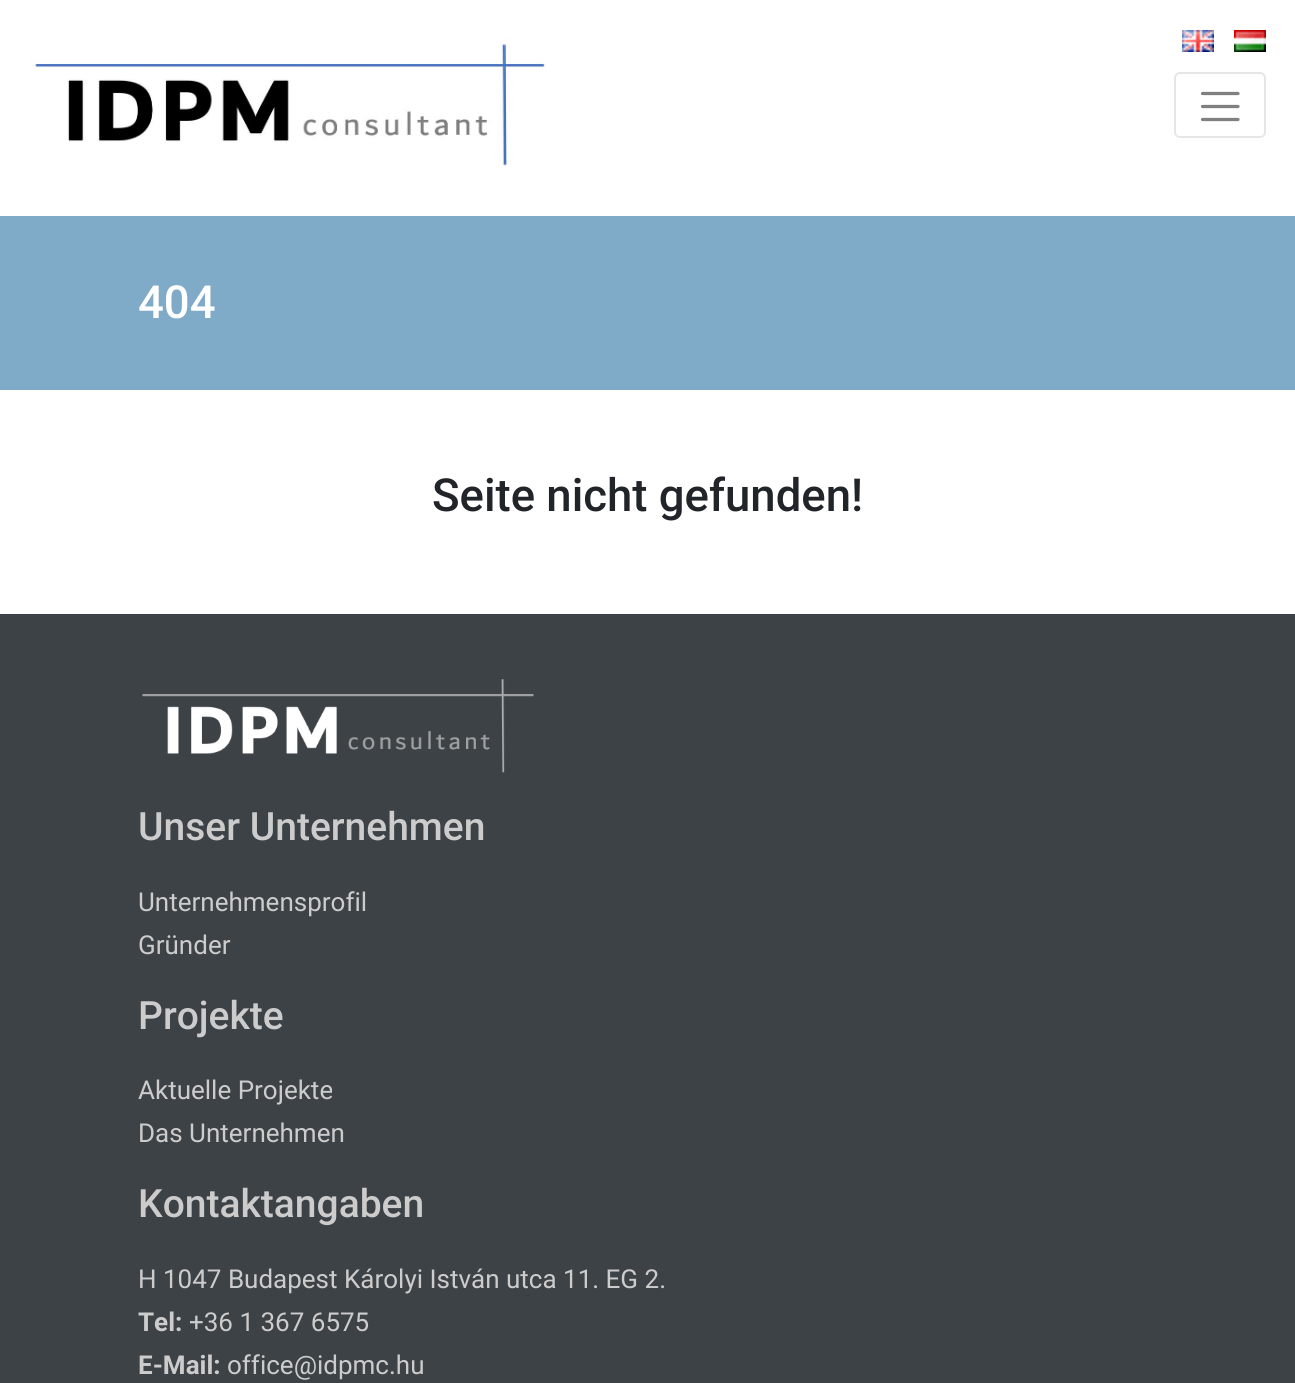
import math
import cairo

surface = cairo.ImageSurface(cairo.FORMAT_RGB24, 1295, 1383)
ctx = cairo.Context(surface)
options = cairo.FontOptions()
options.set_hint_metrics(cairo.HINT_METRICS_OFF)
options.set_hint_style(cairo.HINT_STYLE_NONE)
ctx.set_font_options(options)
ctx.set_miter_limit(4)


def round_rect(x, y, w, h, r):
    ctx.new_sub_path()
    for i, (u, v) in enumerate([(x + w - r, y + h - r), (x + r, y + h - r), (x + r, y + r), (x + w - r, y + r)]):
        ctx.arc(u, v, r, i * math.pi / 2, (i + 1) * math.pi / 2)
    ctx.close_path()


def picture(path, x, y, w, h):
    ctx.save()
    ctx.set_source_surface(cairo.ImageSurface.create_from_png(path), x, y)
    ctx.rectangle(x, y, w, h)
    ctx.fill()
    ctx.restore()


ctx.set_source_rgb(1, 1, 1)
ctx.paint()
picture("img1.png", 30, 38, 517, 128)
picture("img2.png", 1182, 30, 32, 22)
picture("img3.png", 1234, 30, 32, 22)
round_rect(1175, 73, 90, 64, 5)
ctx.set_source_rgb(0.902, 0.902, 0.902)
ctx.stroke()
ctx.new_path()
ctx.move_to(1202.5, 93.5)
ctx.line_to(1238, 93.5)
ctx.move_to(1202.5, 106.5)
ctx.line_to(1238, 106.5)
ctx.move_to(1202.5, 119.5)
ctx.line_to(1238, 119.5)
ctx.set_source_rgb(0.502, 0.502, 0.502)
ctx.set_line_width(3.2)
ctx.set_line_cap(cairo.LINE_CAP_ROUND)
ctx.stroke()
ctx.set_source_rgb(0.502, 0.671, 0.784)
ctx.rectangle(0, 216, 1295, 174)
ctx.fill()
ctx.select_font_face("Roboto Medium")
ctx.set_font_size(45.5)
ctx.set_source_rgb(1, 1, 1)
ctx.move_to(138, 318)
ctx.show_text("404")
ctx.set_source_rgb(0.129, 0.145, 0.161)
ctx.move_to(432, 511)
ctx.show_text("Seite nicht gefunden!")
ctx.set_source_rgb(0.239, 0.259, 0.275)
ctx.rectangle(0, 614, 1295, 769)
ctx.fill()
picture("img4.png", 142, 679, 392, 94)
ctx.set_font_size(39)
ctx.set_source_rgb(0.8, 0.8, 0.8)
ctx.move_to(138, 840)
ctx.show_text("Unser Unternehmen")
ctx.select_font_face("Roboto")
ctx.set_font_size(26)
ctx.move_to(138, 911)
ctx.show_text("Unternehmensprofil")
ctx.move_to(138, 954)
ctx.show_text("Gründer")
ctx.select_font_face("Roboto Medium")
ctx.set_font_size(39)
ctx.move_to(138, 1029)
ctx.show_text("Projekte")
ctx.select_font_face("Roboto")
ctx.set_font_size(26)
ctx.move_to(138, 1099)
ctx.show_text("Aktuelle Projekte")
ctx.move_to(138, 1142)
ctx.show_text("Das Unternehmen")
ctx.select_font_face("Roboto Medium")
ctx.set_font_size(39)
ctx.move_to(138, 1217)
ctx.show_text("Kontaktangaben")
ctx.select_font_face("Roboto")
ctx.set_font_size(26)
ctx.move_to(138, 1288)
ctx.show_text("H 1047 Budapest Károlyi István utca 11. EG 2.")
ctx.select_font_face("Roboto", cairo.FONT_SLANT_NORMAL, cairo.FONT_WEIGHT_BOLD)
ctx.move_to(138, 1331)
ctx.show_text("Tel:")
ctx.select_font_face("Roboto")
ctx.move_to(189, 1331)
ctx.show_text("+36 1 367 6575")
ctx.select_font_face("Roboto", cairo.FONT_SLANT_NORMAL, cairo.FONT_WEIGHT_BOLD)
ctx.move_to(138, 1374)
ctx.show_text("E-Mail:")
ctx.select_font_face("Roboto")
ctx.move_to(227, 1374)
ctx.show_text("office@idpmc.hu")
surface.write_to_png("page.png")
